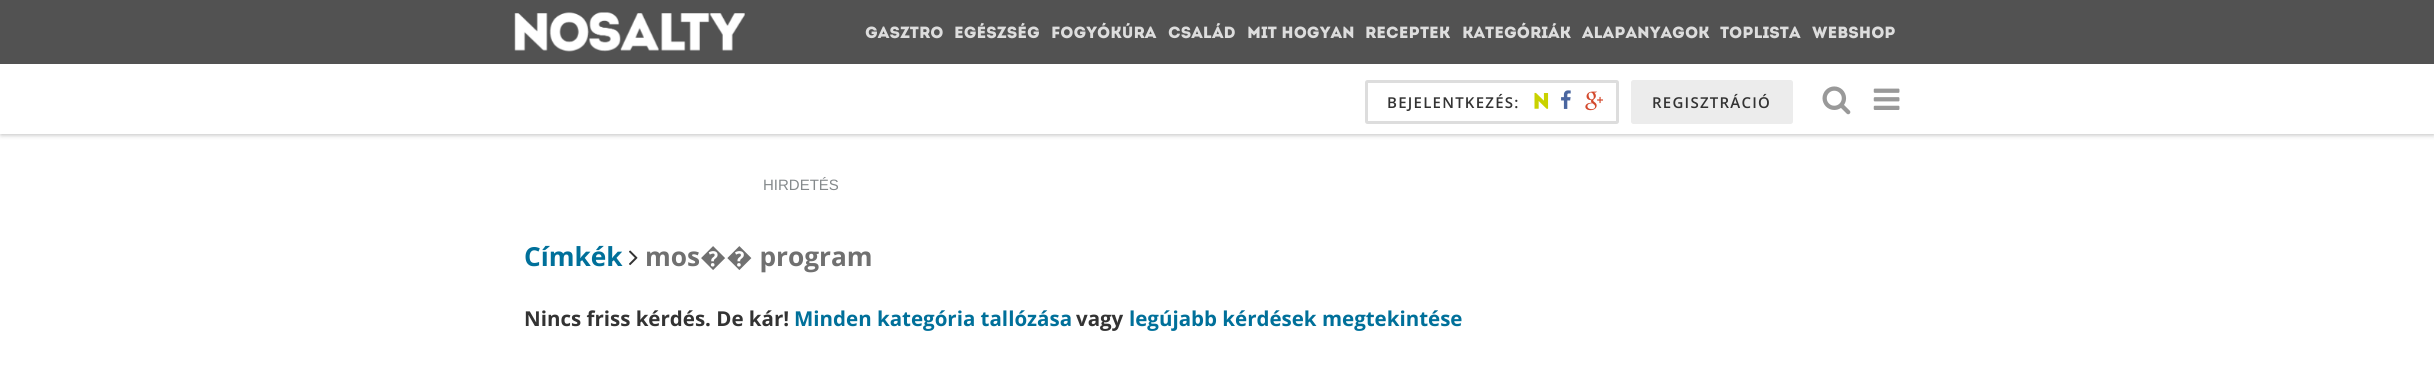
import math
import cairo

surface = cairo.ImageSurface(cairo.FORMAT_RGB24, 2434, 372)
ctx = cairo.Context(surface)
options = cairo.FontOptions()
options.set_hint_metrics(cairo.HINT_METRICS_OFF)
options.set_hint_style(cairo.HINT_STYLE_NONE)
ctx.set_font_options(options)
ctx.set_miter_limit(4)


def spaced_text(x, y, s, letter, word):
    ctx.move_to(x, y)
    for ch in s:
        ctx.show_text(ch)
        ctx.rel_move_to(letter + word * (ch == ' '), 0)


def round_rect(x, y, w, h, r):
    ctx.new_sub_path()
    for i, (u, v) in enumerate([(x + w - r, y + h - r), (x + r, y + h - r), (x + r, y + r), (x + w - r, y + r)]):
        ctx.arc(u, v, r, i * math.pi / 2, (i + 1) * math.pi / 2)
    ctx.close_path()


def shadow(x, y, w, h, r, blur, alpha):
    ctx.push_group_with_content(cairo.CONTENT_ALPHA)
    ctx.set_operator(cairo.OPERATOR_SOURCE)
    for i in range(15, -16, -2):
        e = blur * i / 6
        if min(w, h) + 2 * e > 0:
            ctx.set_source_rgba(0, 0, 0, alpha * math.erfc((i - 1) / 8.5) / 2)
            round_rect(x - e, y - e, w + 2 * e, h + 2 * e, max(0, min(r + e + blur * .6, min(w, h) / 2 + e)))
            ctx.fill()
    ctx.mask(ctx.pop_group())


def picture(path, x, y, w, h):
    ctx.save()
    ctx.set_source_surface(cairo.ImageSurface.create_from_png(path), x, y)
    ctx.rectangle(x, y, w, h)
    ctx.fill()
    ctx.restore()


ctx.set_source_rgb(1, 1, 1)
ctx.paint()
ctx.set_source_rgb(0, 0, 0)
shadow(1, 4, 2433, 131, 0, 2.5, 0.25)
ctx.set_source_rgb(1, 1, 1)
ctx.rectangle(0, 64, 2434, 70)
ctx.fill()
ctx.set_source_rgb(0.322, 0.322, 0.322)
ctx.rectangle(0, 0, 2434, 64)
ctx.fill()
picture("img1.png", 514, 12, 231, 40)
ctx.select_font_face("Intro")
ctx.set_font_size(16.25)
ctx.set_source_rgb(0.867, 0.867, 0.867)
ctx.move_to(865, 38)
ctx.show_text("GASZTRO")
ctx.move_to(954, 38)
ctx.show_text("EGÉSZSÉG")
ctx.move_to(1051, 38)
ctx.show_text("FOGYÓKÚRA")
ctx.move_to(1168, 38)
ctx.show_text("CSALÁD")
ctx.move_to(1247, 38)
ctx.show_text("MIT HOGYAN")
ctx.move_to(1365, 38)
ctx.show_text("RECEPTEK")
ctx.move_to(1462, 38)
ctx.show_text("KATEGÓRIÁK")
ctx.move_to(1582, 38)
ctx.show_text("ALAPANYAGOK")
ctx.move_to(1720, 38)
ctx.show_text("TOPLISTA")
ctx.move_to(1812, 38)
ctx.show_text("WEBSHOP")
round_rect(1366.5, 81.5, 251, 41, 1)
ctx.set_line_width(3)
ctx.stroke()
ctx.select_font_face("Open Sans SemiBold")
ctx.set_font_size(15)
ctx.set_source_rgb(0.2, 0.2, 0.2)
spaced_text(1387, 108, "BEJELENTKEZÉS:", 1.25, 0)
picture("img2.png", 1534, 92, 15, 17)
picture("img3.png", 1561, 90, 10, 19)
picture("img4.png", 1585, 91, 18, 20)
ctx.set_source_rgb(0.922, 0.922, 0.922)
round_rect(1632.5, 81.5, 159, 41, 1)
ctx.fill_preserve()
ctx.stroke()
ctx.set_source_rgb(0.2, 0.2, 0.2)
spaced_text(1652, 108, "REGISZTRÁCIÓ", 1.25, 0)
picture("img5.png", 1822, 86, 29, 29)
picture("img6.png", 1873, 88, 27, 22)
ctx.select_font_face("Liberation Sans")
ctx.set_source_rgb(0.522, 0.541, 0.549)
ctx.move_to(763, 190)
ctx.show_text("HIRDETÉS")
ctx.select_font_face("Open Sans", cairo.FONT_SLANT_NORMAL, cairo.FONT_WEIGHT_BOLD)
ctx.set_font_size(26.25)
ctx.set_source_rgb(0, 0.439, 0.604)
ctx.move_to(524, 266)
ctx.show_text("Címkék")
picture("img7.png", 629, 250, 9, 16)
ctx.set_source_rgb(0.439, 0.439, 0.439)
ctx.move_to(645, 266)
ctx.show_text("mos�� program")
ctx.set_font_size(20.5)
ctx.set_source_rgb(0.2, 0.2, 0.2)
ctx.move_to(524, 326)
ctx.show_text("Nincs friss kérdés. De kár!")
ctx.set_source_rgb(0, 0.439, 0.604)
ctx.move_to(794, 326)
ctx.show_text("Minden kategória tallózása")
ctx.set_source_rgb(0.2, 0.2, 0.2)
ctx.move_to(1076, 326)
ctx.show_text("vagy")
ctx.set_source_rgb(0, 0.439, 0.604)
ctx.move_to(1129, 326)
ctx.show_text("legújabb kérdések megtekintése")
surface.write_to_png("page.png")
